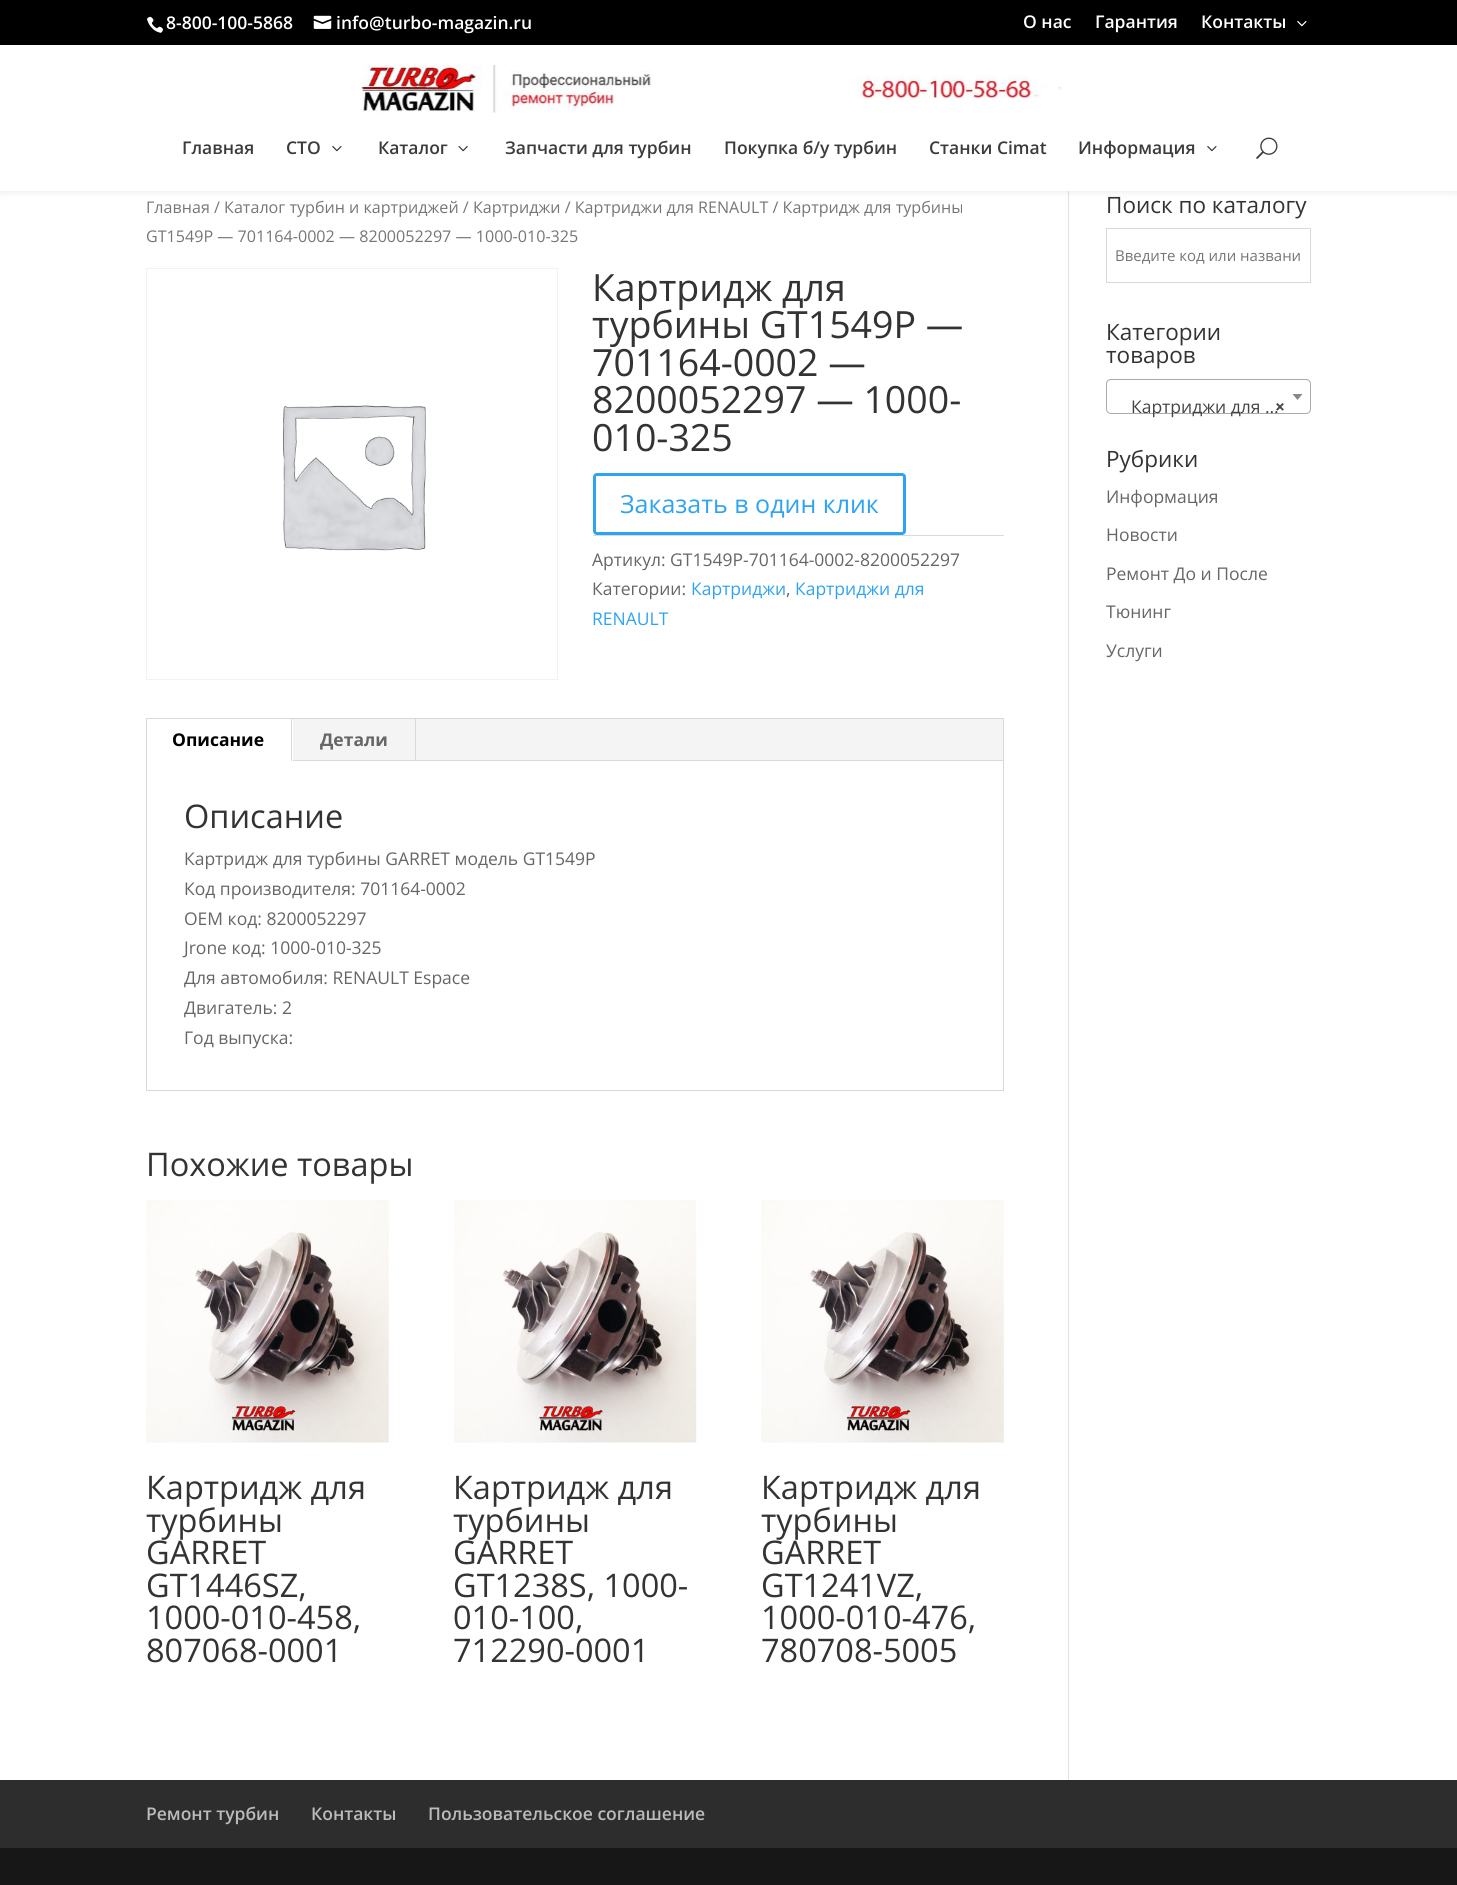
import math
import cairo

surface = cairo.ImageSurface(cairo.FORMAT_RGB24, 1457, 1885)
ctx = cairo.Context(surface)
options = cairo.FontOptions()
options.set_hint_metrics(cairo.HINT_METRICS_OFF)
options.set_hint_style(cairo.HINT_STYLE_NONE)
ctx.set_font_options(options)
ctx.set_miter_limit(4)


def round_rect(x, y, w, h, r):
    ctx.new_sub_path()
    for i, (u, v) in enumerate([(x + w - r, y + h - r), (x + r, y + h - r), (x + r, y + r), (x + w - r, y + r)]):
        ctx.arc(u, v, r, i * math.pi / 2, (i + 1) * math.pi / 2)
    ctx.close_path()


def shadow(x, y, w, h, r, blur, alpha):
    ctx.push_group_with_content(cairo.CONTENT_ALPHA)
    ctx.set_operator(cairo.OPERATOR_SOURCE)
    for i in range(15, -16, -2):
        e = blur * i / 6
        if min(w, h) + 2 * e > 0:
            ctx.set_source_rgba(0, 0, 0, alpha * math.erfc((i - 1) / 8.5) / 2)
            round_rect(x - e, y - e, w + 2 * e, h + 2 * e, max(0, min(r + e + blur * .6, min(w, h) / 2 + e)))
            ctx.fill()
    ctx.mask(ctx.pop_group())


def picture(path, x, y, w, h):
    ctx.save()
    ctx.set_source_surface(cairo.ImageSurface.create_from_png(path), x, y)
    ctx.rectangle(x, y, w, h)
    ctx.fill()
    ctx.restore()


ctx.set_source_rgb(1, 1, 1)
ctx.paint()
ctx.set_source_rgb(0.886, 0.886, 0.886)
ctx.rectangle(1068, 191, 1, 1589)
ctx.fill()
ctx.set_source_rgb(0, 0, 0)
shadow(0, 45, 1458, 146, 0, 4.5, 0.1)
ctx.set_source_rgb(0, 0, 0)
ctx.rectangle(0, 0, 1457, 45)
ctx.fill()
picture("img1.png", 147, 16, 16, 17)
ctx.select_font_face("Open Sans SemiBold")
ctx.set_font_size(17.5)
ctx.set_source_rgb(1, 1, 1)
ctx.move_to(166, 29)
ctx.show_text("8-800-100-5868")
picture("img2.png", 313, 15, 19, 14)
ctx.move_to(336, 29)
ctx.show_text("info@turbo-magazin.ru")
ctx.move_to(1023, 28)
ctx.show_text("О нас")
ctx.move_to(1095, 28)
ctx.show_text("Гарантия")
ctx.move_to(1201, 28)
ctx.show_text("Контакты")
picture("img3.png", 1297, 21, 10, 6)
ctx.rectangle(0, 45, 1457, 146)
ctx.fill()
picture("img4.png", 361, 65, 701, 48)
ctx.set_source_rgb(0.231, 0.231, 0.231)
ctx.move_to(182, 154)
ctx.show_text("Главная")
ctx.move_to(286, 154)
ctx.show_text("СТО")
picture("img5.png", 332, 146, 10, 6)
ctx.move_to(378, 154)
ctx.show_text("Каталог")
picture("img6.png", 458, 146, 10, 6)
ctx.move_to(505, 154)
ctx.show_text("Запчасти для турбин")
ctx.move_to(724, 154)
ctx.show_text("Покупка б/у турбин")
ctx.move_to(929, 154)
ctx.show_text("Станки Cimat")
ctx.move_to(1078, 154)
ctx.show_text("Информация")
picture("img5.png", 1207, 146, 10, 6)
picture("img7.png", 1256, 137, 22, 22)
ctx.select_font_face("Open Sans")
ctx.set_font_size(16.1)
ctx.set_source_rgb(0.463, 0.463, 0.463)
ctx.move_to(146, 213)
ctx.show_text("Главная / Каталог турбин и картриджей / Картриджи / Картриджи для RENAULT / Картридж для турбины")
ctx.move_to(146, 242)
ctx.show_text("GT1549P — 701164-0002 — 8200052297 — 1000-010-325")
ctx.rectangle(146.5, 268.5, 411, 411)
ctx.set_source_rgb(0.949, 0.949, 0.949)
ctx.set_line_width(1)
ctx.stroke()
picture("img8.png", 282, 405, 144, 146)
ctx.set_font_size(37.5)
ctx.set_source_rgb(0.2, 0.2, 0.2)
ctx.move_to(592, 301)
ctx.show_text("Картридж для")
ctx.move_to(592, 338)
ctx.show_text("турбины GT1549P —")
ctx.move_to(592, 376)
ctx.show_text("701164-0002 —")
ctx.move_to(592, 413)
ctx.show_text("8200052297 — 1000-")
ctx.move_to(592, 451)
ctx.show_text("010-325")
round_rect(594.5, 474.5, 310, 59, 2.5)
ctx.set_source_rgb(0.18, 0.639, 0.949)
ctx.set_line_width(3)
ctx.stroke()
ctx.set_font_size(25)
ctx.move_to(620, 513)
ctx.show_text("Заказать в один клик")
ctx.set_source_rgb(0.855, 0.855, 0.855)
ctx.rectangle(593, 535, 411, 1)
ctx.fill()
ctx.set_font_size(17.5)
ctx.set_source_rgb(0.4, 0.4, 0.4)
ctx.move_to(592, 566)
ctx.show_text("Артикул: GT1549P-701164-0002-8200052297")
ctx.move_to(592, 595)
ctx.show_text("Категории:")
ctx.set_source_rgb(0.18, 0.639, 0.949)
ctx.move_to(691, 595)
ctx.show_text("Картриджи")
ctx.set_source_rgb(0.4, 0.4, 0.4)
ctx.move_to(786, 595)
ctx.show_text(",")
ctx.set_source_rgb(0.18, 0.639, 0.949)
ctx.move_to(795, 595)
ctx.show_text("Картриджи для")
ctx.move_to(592, 625)
ctx.show_text("RENAULT")
ctx.rectangle(146.5, 718.5, 857, 372)
ctx.set_source_rgb(0.851, 0.851, 0.851)
ctx.set_line_width(1)
ctx.stroke()
ctx.set_source_rgb(0.957, 0.957, 0.957)
ctx.rectangle(293, 719, 710, 41)
ctx.fill()
ctx.set_source_rgb(0.851, 0.851, 0.851)
ctx.rectangle(291, 719, 1, 42)
ctx.fill()
ctx.select_font_face("Open Sans", cairo.FONT_SLANT_NORMAL, cairo.FONT_WEIGHT_BOLD)
ctx.set_source_rgb(0, 0, 0)
ctx.move_to(172, 746)
ctx.show_text("Описание")
ctx.set_source_rgb(0.851, 0.851, 0.851)
ctx.rectangle(415, 719, 1, 42)
ctx.fill()
ctx.set_source_rgb(0.4, 0.4, 0.4)
ctx.move_to(320, 746)
ctx.show_text("Детали")
ctx.set_source_rgb(0.851, 0.851, 0.851)
ctx.rectangle(293, 760, 710, 1)
ctx.fill()
ctx.select_font_face("Open Sans")
ctx.set_font_size(32.5)
ctx.set_source_rgb(0.2, 0.2, 0.2)
ctx.move_to(184, 828)
ctx.show_text("Описание")
ctx.set_font_size(17.5)
ctx.set_source_rgb(0.4, 0.4, 0.4)
ctx.move_to(184, 865)
ctx.show_text("Картридж для турбины GARRET модель GT1549P")
ctx.move_to(184, 895)
ctx.show_text("Код производителя: 701164-0002")
ctx.move_to(184, 925)
ctx.show_text("OEM код: 8200052297")
ctx.move_to(184, 954)
ctx.show_text("Jrone код: 1000-010-325")
ctx.move_to(184, 984)
ctx.show_text("Для автомобиля: RENAULT Espace")
ctx.move_to(184, 1014)
ctx.show_text("Двигатель: 2")
ctx.move_to(184, 1044)
ctx.show_text("Год выпуска:")
ctx.set_font_size(32.5)
ctx.set_source_rgb(0.2, 0.2, 0.2)
ctx.move_to(146, 1176)
ctx.show_text("Похожие товары")
picture("img9.png", 146, 1200, 243, 243)
ctx.move_to(146, 1499)
ctx.show_text("Картридж для")
ctx.move_to(146, 1532)
ctx.show_text("турбины")
ctx.move_to(146, 1564)
ctx.show_text("GARRET")
ctx.move_to(146, 1597)
ctx.show_text("GT1446SZ,")
ctx.move_to(146, 1629)
ctx.show_text("1000-010-458,")
ctx.move_to(146, 1662)
ctx.show_text("807068-0001")
picture("img10.png", 454, 1200, 243, 243)
ctx.move_to(453, 1499)
ctx.show_text("Картридж для")
ctx.move_to(453, 1532)
ctx.show_text("турбины")
ctx.move_to(453, 1564)
ctx.show_text("GARRET")
ctx.move_to(453, 1597)
ctx.show_text("GT1238S, 1000-")
ctx.move_to(453, 1629)
ctx.show_text("010-100,")
ctx.move_to(453, 1662)
ctx.show_text("712290-0001")
picture("img11.png", 761, 1200, 243, 243)
ctx.move_to(761, 1499)
ctx.show_text("Картридж для")
ctx.move_to(761, 1532)
ctx.show_text("турбины")
ctx.move_to(761, 1564)
ctx.show_text("GARRET")
ctx.move_to(761, 1597)
ctx.show_text("GT1241VZ,")
ctx.move_to(761, 1629)
ctx.show_text("1000-010-476,")
ctx.move_to(761, 1662)
ctx.show_text("780708-5005")
ctx.set_font_size(22.5)
ctx.move_to(1106, 213)
ctx.show_text("Поиск по каталогу")
ctx.rectangle(1106.5, 228.5, 204, 54)
ctx.set_source_rgb(0.847, 0.847, 0.847)
ctx.stroke()
ctx.set_font_size(15)
ctx.set_source_rgb(0.463, 0.463, 0.463)
ctx.move_to(1115, 261)
ctx.show_text("Введите код или названи")
ctx.set_font_size(22.5)
ctx.set_source_rgb(0.2, 0.2, 0.2)
ctx.move_to(1106, 340)
ctx.show_text("Категории")
ctx.move_to(1106, 363)
ctx.show_text("товаров")
round_rect(1106.5, 379.5, 204, 34, 4.5)
ctx.set_source_rgb(0.667, 0.667, 0.667)
ctx.stroke()
ctx.set_source_rgb(0.533, 0.533, 0.533)
ctx.new_path()
ctx.move_to(1292.5, 394)
ctx.line_to(1302.5, 394)
ctx.line_to(1297.5, 400)
ctx.close_path()
ctx.fill()
ctx.set_font_size(17.5)
ctx.set_source_rgb(0.267, 0.267, 0.267)
ctx.move_to(1131, 413)
ctx.show_text("Картриджи для …")
ctx.select_font_face("Open Sans", cairo.FONT_SLANT_NORMAL, cairo.FONT_WEIGHT_BOLD)
ctx.move_to(1275, 413)
ctx.show_text("×")
ctx.select_font_face("Open Sans")
ctx.set_font_size(22.5)
ctx.set_source_rgb(0.2, 0.2, 0.2)
ctx.move_to(1106, 467)
ctx.show_text("Рубрики")
ctx.set_font_size(17.5)
ctx.set_source_rgb(0.4, 0.4, 0.4)
ctx.move_to(1106, 503)
ctx.show_text("Информация")
ctx.move_to(1106, 541)
ctx.show_text("Новости")
ctx.move_to(1106, 580)
ctx.show_text("Ремонт До и После")
ctx.move_to(1106, 618)
ctx.show_text("Тюнинг")
ctx.move_to(1106, 657)
ctx.show_text("Услуги")
ctx.set_source_rgb(0.176, 0.176, 0.176)
ctx.rectangle(0, 1780, 1457, 68)
ctx.fill()
ctx.select_font_face("Open Sans SemiBold")
ctx.set_source_rgb(0.733, 0.733, 0.733)
ctx.move_to(146, 1820)
ctx.show_text("Ремонт турбин")
ctx.move_to(311, 1820)
ctx.show_text("Контакты")
ctx.move_to(428, 1820)
ctx.show_text("Пользовательское соглашение")
ctx.set_source_rgb(0.09, 0.09, 0.09)
ctx.rectangle(0, 1848, 1457, 37)
ctx.fill()
surface.write_to_png("page.png")
